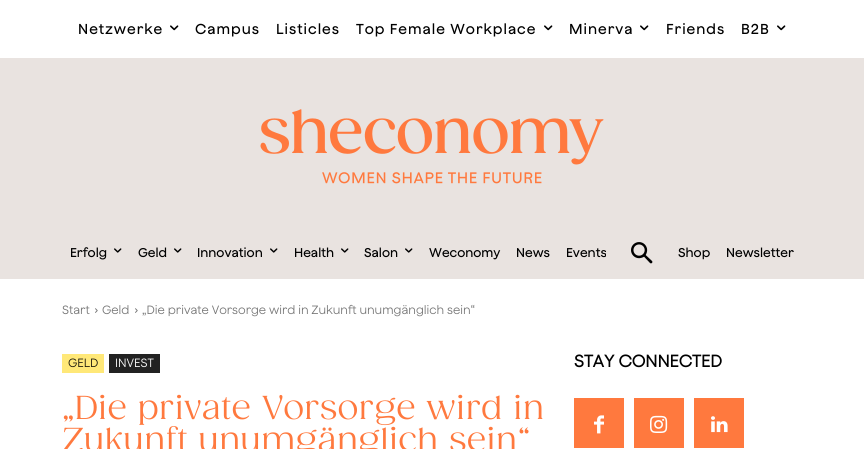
import math
import cairo

surface = cairo.ImageSurface(cairo.FORMAT_RGB24, 864, 449)
ctx = cairo.Context(surface)
options = cairo.FontOptions()
options.set_hint_metrics(cairo.HINT_METRICS_OFF)
options.set_hint_style(cairo.HINT_STYLE_NONE)
ctx.set_font_options(options)
ctx.set_miter_limit(4)


def spaced_text(x, y, s, letter, word):
    ctx.move_to(x, y)
    for ch in s:
        ctx.show_text(ch)
        ctx.rel_move_to(letter + word * (ch == ' '), 0)


def picture(path, x, y, w, h):
    ctx.save()
    ctx.set_source_surface(cairo.ImageSurface.create_from_png(path), x, y)
    ctx.rectangle(x, y, w, h)
    ctx.fill()
    ctx.restore()


ctx.set_source_rgb(1, 1, 1)
ctx.paint()
ctx.select_font_face("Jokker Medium")
ctx.set_font_size(14.4)
ctx.set_source_rgb(0, 0, 0)
spaced_text(78, 34, "Netzwerke", 1, 0)
picture("img1.png", 170, 25, 9, 6)
spaced_text(195, 34, "Campus", 1, 0)
spaced_text(276, 34, "Listicles", 1, 0)
spaced_text(356, 34, "Top Female Workplace", 1, 0)
picture("img1.png", 544, 25, 9, 6)
spaced_text(569, 34, "Minerva", 1, 0)
picture("img1.png", 640, 25, 9, 6)
spaced_text(666, 34, "Friends", 1, 0)
spaced_text(741, 34, "B2B", 1, 0)
picture("img1.png", 777, 25, 9, 6)
ctx.set_source_rgb(0.914, 0.89, 0.878)
ctx.rectangle(0, 58, 864, 221)
ctx.fill()
picture("img2.png", 260, 109, 344, 75)
ctx.set_font_size(12.75)
ctx.set_source_rgb(0, 0, 0)
ctx.move_to(70, 257)
ctx.show_text("Erfolg")
picture("img3.png", 114, 248, 8, 5)
ctx.move_to(138, 257)
ctx.show_text("Geld")
picture("img3.png", 174, 248, 8, 5)
ctx.move_to(197, 257)
ctx.show_text("Innovation")
picture("img3.png", 270, 248, 8, 5)
ctx.move_to(294, 257)
ctx.show_text("Health")
picture("img3.png", 341, 248, 8, 5)
ctx.move_to(364, 257)
ctx.show_text("Salon")
picture("img3.png", 405, 248, 8, 5)
ctx.move_to(429, 257)
ctx.show_text("Weconomy")
ctx.move_to(516, 257)
ctx.show_text("News")
ctx.move_to(566, 257)
ctx.show_text("Events")
picture("img4.png", 631, 242, 22, 22)
ctx.move_to(678, 257)
ctx.show_text("Shop")
ctx.move_to(726, 257)
ctx.show_text("Newsletter")
ctx.select_font_face("Jokker")
ctx.set_font_size(12)
ctx.set_source_rgb(0.455, 0.455, 0.455)
ctx.move_to(62, 314)
ctx.show_text("Start")
picture("img5.png", 95, 308, 3, 5)
ctx.move_to(102, 314)
ctx.show_text("Geld")
picture("img5.png", 135, 308, 3, 5)
ctx.move_to(142, 314)
ctx.show_text("„Die private Vorsorge wird in Zukunft unumgänglich sein“")
ctx.set_source_rgb(1, 0.91, 0.471)
ctx.rectangle(62, 354, 42, 19)
ctx.fill()
ctx.set_source_rgb(0.102, 0.09, 0.047)
ctx.move_to(68, 367)
ctx.show_text("GELD")
ctx.set_source_rgb(0.133, 0.133, 0.133)
ctx.rectangle(109, 354, 51, 19)
ctx.fill()
ctx.set_source_rgb(1, 1, 1)
ctx.move_to(115, 367)
ctx.show_text("INVEST")
ctx.select_font_face("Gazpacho")
ctx.set_font_size(32)
ctx.set_source_rgb(1, 0.475, 0.243)
ctx.move_to(62, 419)
ctx.show_text("„Die private Vorsorge wird in")
ctx.move_to(62, 451)
ctx.show_text("Zukunft unumgänglich sein“")
ctx.select_font_face("Jokker", cairo.FONT_SLANT_NORMAL, cairo.FONT_WEIGHT_BOLD)
ctx.set_font_size(17)
ctx.set_source_rgb(0, 0, 0)
ctx.move_to(574, 367)
ctx.show_text("STAY CONNECTED")
ctx.set_source_rgb(1, 0.475, 0.243)
ctx.rectangle(574, 398, 50, 50)
ctx.fill()
picture("img6.png", 594, 415, 10, 19)
ctx.rectangle(634, 398, 50, 50)
ctx.fill()
picture("img7.png", 650, 415, 18, 18)
ctx.rectangle(694, 398, 50, 50)
ctx.fill()
picture("img8.png", 711, 416, 17, 17)
surface.write_to_png("page.png")
